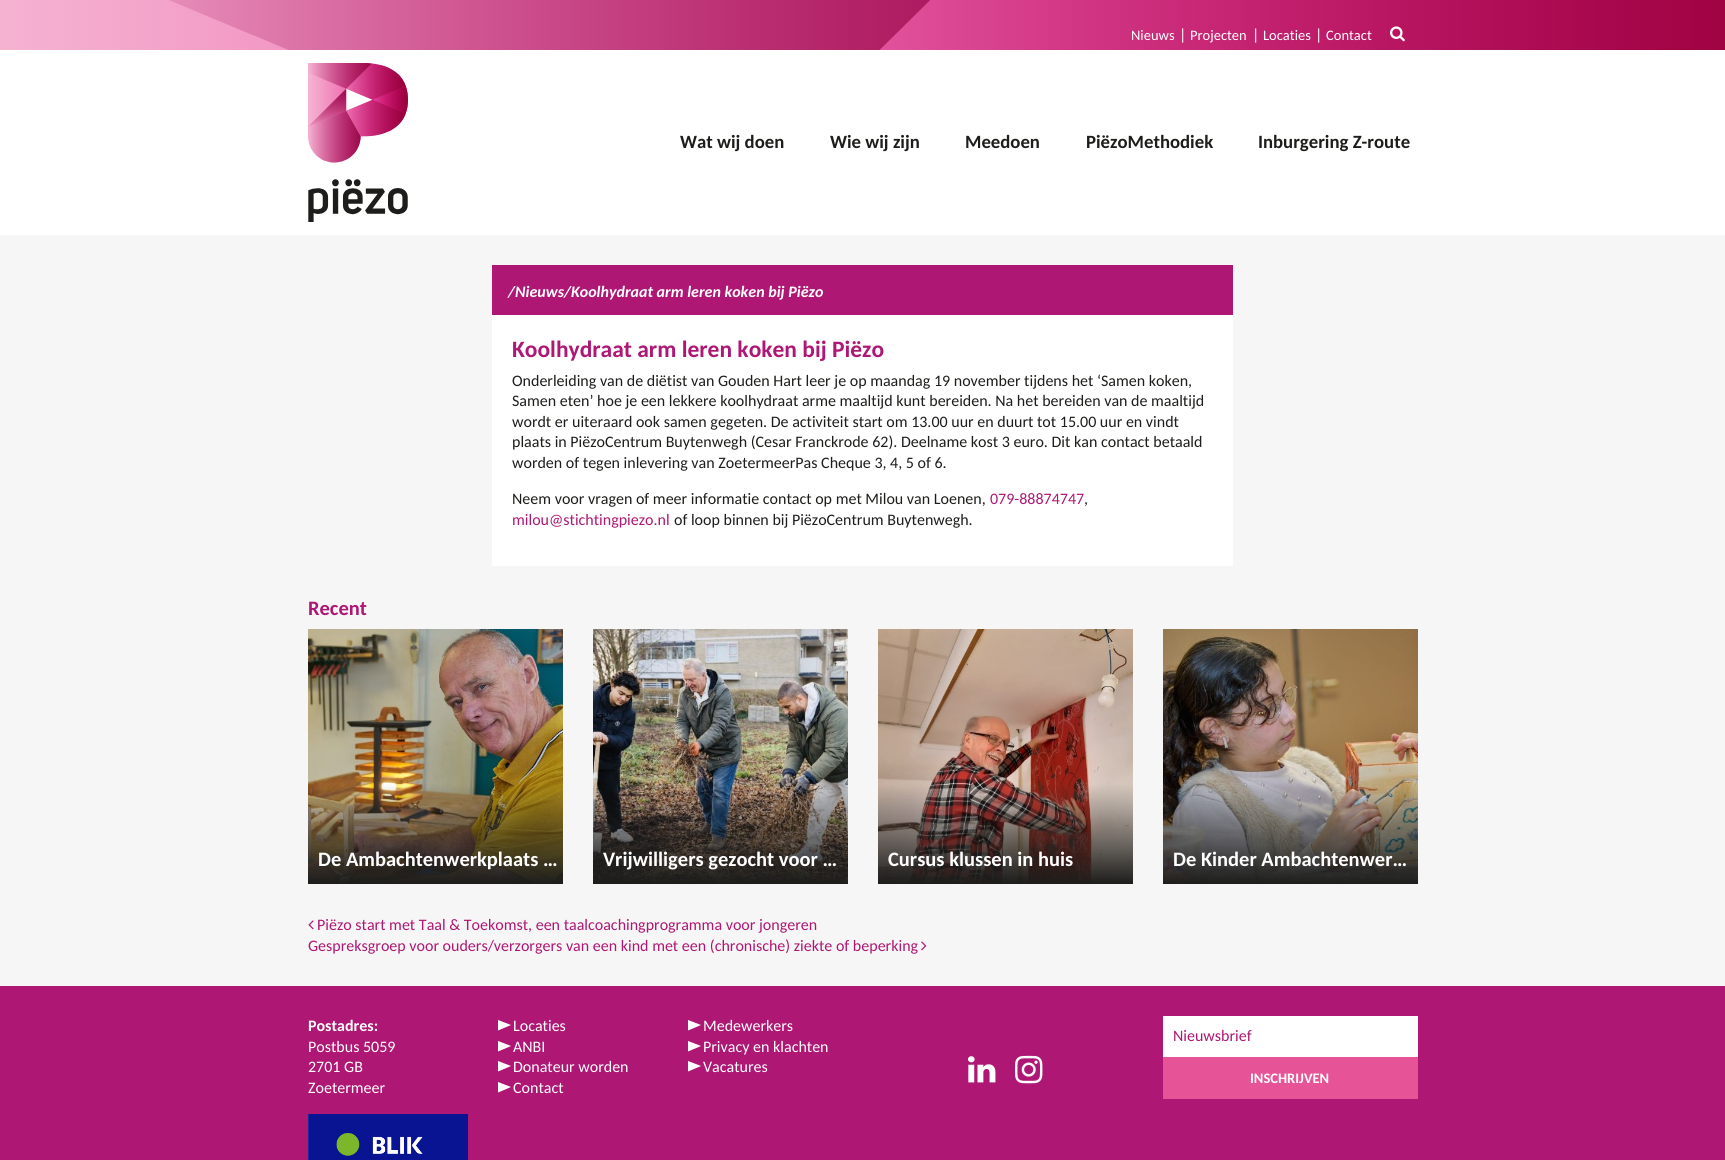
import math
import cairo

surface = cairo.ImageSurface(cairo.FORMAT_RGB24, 1725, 1160)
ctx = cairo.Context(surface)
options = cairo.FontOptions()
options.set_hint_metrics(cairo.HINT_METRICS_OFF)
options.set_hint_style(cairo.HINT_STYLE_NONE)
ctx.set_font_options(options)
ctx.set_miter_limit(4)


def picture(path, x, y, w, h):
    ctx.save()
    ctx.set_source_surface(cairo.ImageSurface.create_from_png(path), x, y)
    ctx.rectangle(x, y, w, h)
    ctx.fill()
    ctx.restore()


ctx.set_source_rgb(0.961, 0.961, 0.961)
ctx.paint()
picture("img1.png", 0, 0, 1725, 50)
ctx.select_font_face("Carlito")
ctx.set_font_size(14.5)
ctx.set_source_rgb(1, 1, 1)
ctx.move_to(1131, 40)
ctx.show_text("Nieuws")
ctx.set_font_size(16)
ctx.move_to(1179, 40)
ctx.show_text("|")
ctx.set_font_size(14.5)
ctx.move_to(1190, 40)
ctx.show_text("Projecten")
ctx.set_font_size(16)
ctx.move_to(1252, 40)
ctx.show_text("|")
ctx.set_font_size(14.5)
ctx.move_to(1263, 40)
ctx.show_text("Locaties")
ctx.set_font_size(16)
ctx.move_to(1315, 40)
ctx.show_text("|")
ctx.set_font_size(14.5)
ctx.move_to(1326, 40)
ctx.show_text("Contact")
picture("img2.png", 1390, 26, 15, 16)
ctx.rectangle(0, 50, 1725, 185)
ctx.fill()
picture("img3.png", 308, 63, 100, 159)
ctx.select_font_face("Carlito", cairo.FONT_SLANT_NORMAL, cairo.FONT_WEIGHT_BOLD)
ctx.set_font_size(18.75)
ctx.set_source_rgb(0.114, 0.114, 0.106)
ctx.move_to(680, 148)
ctx.show_text("Wat wij doen")
ctx.move_to(830, 148)
ctx.show_text("Wie wij zijn")
ctx.move_to(965, 148)
ctx.show_text("Meedoen")
ctx.move_to(1086, 148)
ctx.show_text("PiëzoMethodiek")
ctx.move_to(1258, 148)
ctx.show_text("Inburgering Z-route")
ctx.set_source_rgb(0.682, 0.09, 0.455)
ctx.rectangle(492, 265, 741, 50)
ctx.fill()
ctx.select_font_face("Carlito", cairo.FONT_SLANT_ITALIC, cairo.FONT_WEIGHT_BOLD)
ctx.set_font_size(16)
ctx.set_source_rgb(1, 1, 1)
ctx.move_to(508, 297)
ctx.show_text("/")
ctx.move_to(564, 297)
ctx.show_text("/Koolhydraat arm leren koken bij Piëzo")
ctx.move_to(515, 297)
ctx.show_text("Nieuws")
ctx.rectangle(492, 315, 741, 251)
ctx.fill()
ctx.select_font_face("Carlito", cairo.FONT_SLANT_NORMAL, cairo.FONT_WEIGHT_BOLD)
ctx.set_font_size(23.5)
ctx.set_source_rgb(0.682, 0.09, 0.455)
ctx.move_to(512, 357)
ctx.show_text("Koolhydraat arm leren koken bij Piëzo")
ctx.select_font_face("Carlito")
ctx.set_font_size(16)
ctx.set_source_rgb(0.114, 0.114, 0.106)
ctx.move_to(512, 386)
ctx.show_text("Onderleiding van de diëtist van Gouden Hart leer je op maandag 19 november tijdens het ‘Samen koken,")
ctx.move_to(512, 406)
ctx.show_text("Samen eten’ hoe je een lekkere koolhydraat arme maaltijd kunt bereiden. Na het bereiden van de maaltijd")
ctx.move_to(512, 427)
ctx.show_text("wordt er uiteraard ook samen gegeten. De activiteit start om 13.00 uur en duurt tot 15.00 uur en vindt")
ctx.move_to(512, 447)
ctx.show_text("plaats in PiëzoCentrum Buytenwegh (Cesar Franckrode 62). Deelname kost 3 euro. Dit kan contact betaald")
ctx.move_to(512, 468)
ctx.show_text("worden of tegen inlevering van ZoetermeerPas Cheque 3, 4, 5 of 6.")
ctx.move_to(512, 504)
ctx.show_text("Neem voor vragen of meer informatie contact op met Milou van Loenen,")
ctx.set_source_rgb(0.682, 0.09, 0.455)
ctx.move_to(990, 504)
ctx.show_text("079-88874747")
ctx.set_source_rgb(0.114, 0.114, 0.106)
ctx.move_to(1084, 504)
ctx.show_text(",")
ctx.set_source_rgb(0.682, 0.09, 0.455)
ctx.move_to(512, 525)
ctx.show_text("milou@stichtingpiezo.nl")
ctx.set_source_rgb(0.114, 0.114, 0.106)
ctx.move_to(674, 525)
ctx.show_text("of loop binnen bij PiëzoCentrum Buytenwegh.")
ctx.select_font_face("Carlito", cairo.FONT_SLANT_NORMAL, cairo.FONT_WEIGHT_BOLD)
ctx.set_font_size(20.5)
ctx.set_source_rgb(0.682, 0.09, 0.455)
ctx.move_to(308, 615)
ctx.show_text("Recent")
picture("img4.png", 308, 629, 255, 255)
ctx.set_source_rgb(1, 1, 1)
ctx.move_to(318, 866)
ctx.show_text("De Ambachtenwerkplaats …")
picture("img5.png", 593, 629, 255, 255)
ctx.move_to(603, 866)
ctx.show_text("Vrijwilligers gezocht voor …")
picture("img6.png", 878, 629, 255, 255)
ctx.move_to(888, 866)
ctx.show_text("Cursus klussen in huis")
picture("img7.png", 1163, 629, 255, 255)
ctx.move_to(1173, 866)
ctx.show_text("De Kinder Ambachtenwer…")
picture("img8.png", 308, 920, 6, 10)
ctx.select_font_face("Carlito")
ctx.set_font_size(16)
ctx.set_source_rgb(0.682, 0.09, 0.455)
ctx.move_to(317, 930)
ctx.show_text("Piëzo start met Taal & Toekomst, een taalcoachingprogramma voor jongeren")
ctx.move_to(308, 951)
ctx.show_text("Gespreksgroep voor ouders/verzorgers van een kind met een (chronische) ziekte of beperking")
picture("img9.png", 921, 941, 6, 10)
ctx.rectangle(0, 986, 1725, 174)
ctx.fill()
ctx.select_font_face("Carlito", cairo.FONT_SLANT_NORMAL, cairo.FONT_WEIGHT_BOLD)
ctx.set_source_rgb(1, 1, 1)
ctx.move_to(308, 1031)
ctx.show_text("Postadres:")
ctx.select_font_face("Carlito")
ctx.move_to(308, 1052)
ctx.show_text("Postbus 5059")
ctx.move_to(308, 1072)
ctx.show_text("2701 GB")
ctx.move_to(308, 1093)
ctx.show_text("Zoetermeer")
picture("img10.png", 308, 1114, 160, 46)
ctx.new_path()
ctx.move_to(498, 1020)
ctx.line_to(498, 1030.5)
ctx.line_to(511, 1025)
ctx.close_path()
ctx.fill()
ctx.move_to(513, 1031)
ctx.show_text("Locaties")
ctx.new_path()
ctx.move_to(498, 1041)
ctx.line_to(498, 1051.5)
ctx.line_to(511, 1046)
ctx.close_path()
ctx.fill()
ctx.move_to(513, 1052)
ctx.show_text("ANBI")
ctx.new_path()
ctx.move_to(498, 1061)
ctx.line_to(498, 1071.5)
ctx.line_to(511, 1066)
ctx.close_path()
ctx.fill()
ctx.move_to(513, 1072)
ctx.show_text("Donateur worden")
ctx.new_path()
ctx.move_to(498, 1082)
ctx.line_to(498, 1092.5)
ctx.line_to(511, 1087)
ctx.close_path()
ctx.fill()
ctx.move_to(513, 1093)
ctx.show_text("Contact")
ctx.new_path()
ctx.move_to(688, 1020)
ctx.line_to(688, 1030.5)
ctx.line_to(701, 1025)
ctx.close_path()
ctx.fill()
ctx.move_to(703, 1031)
ctx.show_text("Medewerkers")
ctx.new_path()
ctx.move_to(688, 1041)
ctx.line_to(688, 1051.5)
ctx.line_to(701, 1046)
ctx.close_path()
ctx.fill()
ctx.move_to(703, 1052)
ctx.show_text("Privacy en klachten")
ctx.new_path()
ctx.move_to(688, 1061)
ctx.line_to(688, 1071.5)
ctx.line_to(701, 1066)
ctx.close_path()
ctx.fill()
ctx.move_to(703, 1072)
ctx.show_text("Vacatures")
picture("img11.png", 968, 1056, 28, 27)
picture("img12.png", 1015, 1055, 28, 29)
ctx.rectangle(1163, 1016, 255, 41)
ctx.fill()
ctx.set_source_rgb(0.682, 0.09, 0.455)
ctx.move_to(1173, 1041)
ctx.show_text("Nieuwsbrief")
ctx.set_source_rgb(0.902, 0.325, 0.588)
ctx.rectangle(1163, 1057, 255, 42)
ctx.fill()
ctx.select_font_face("Carlito", cairo.FONT_SLANT_NORMAL, cairo.FONT_WEIGHT_BOLD)
ctx.set_font_size(14.5)
ctx.set_source_rgb(1, 1, 1)
ctx.move_to(1250, 1083)
ctx.show_text("INSCHRIJVEN")
surface.write_to_png("page.png")
